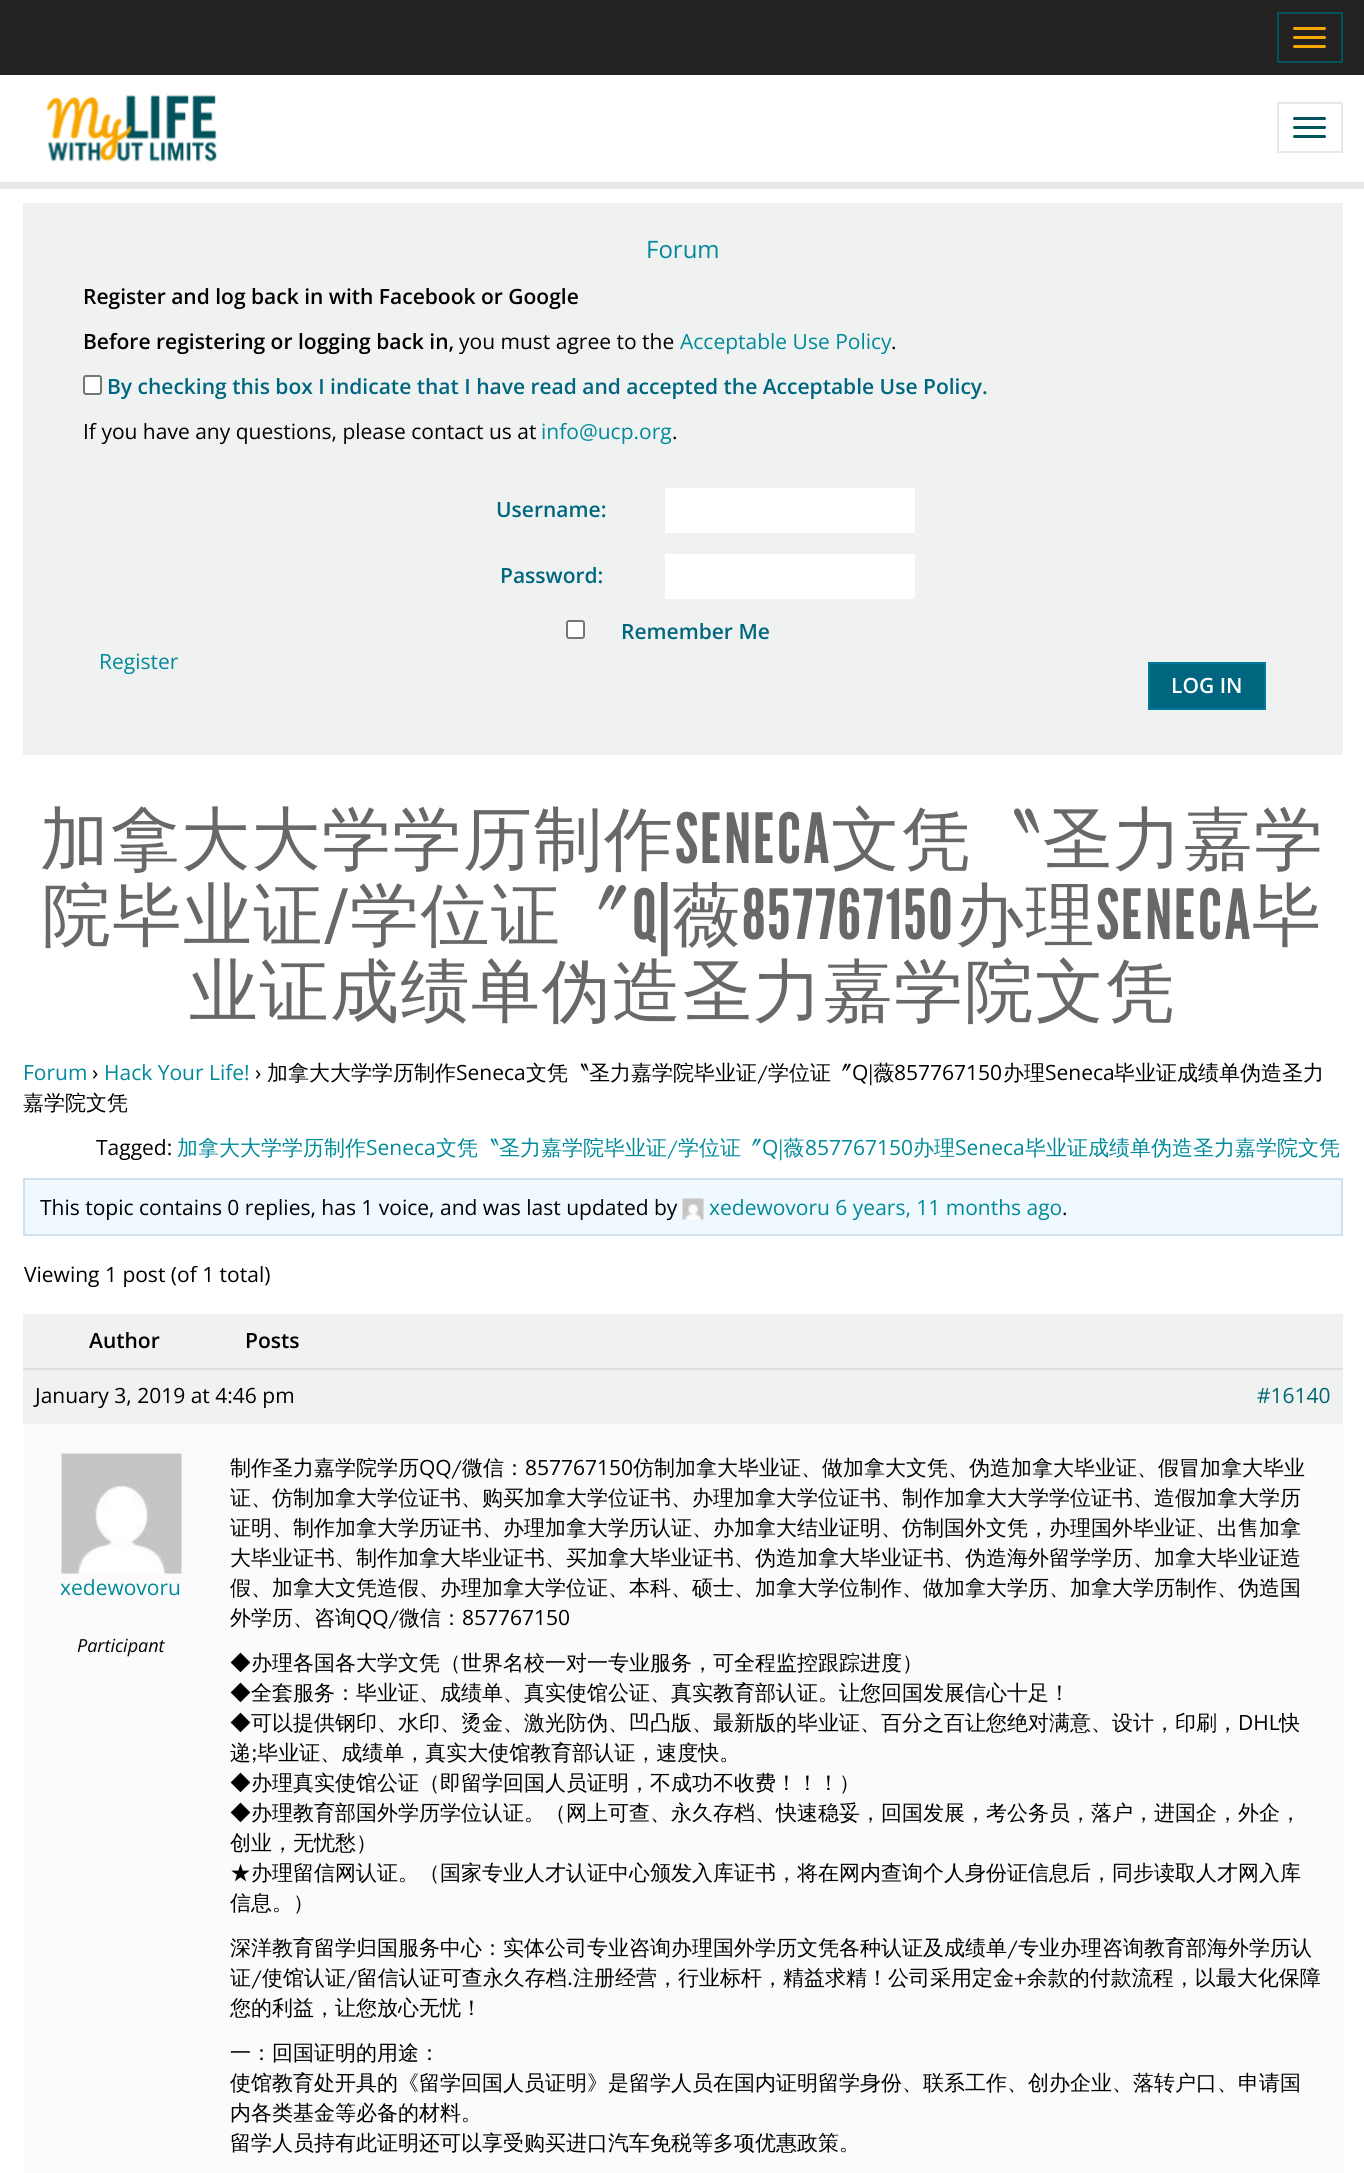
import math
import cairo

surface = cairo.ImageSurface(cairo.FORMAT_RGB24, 1364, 2173)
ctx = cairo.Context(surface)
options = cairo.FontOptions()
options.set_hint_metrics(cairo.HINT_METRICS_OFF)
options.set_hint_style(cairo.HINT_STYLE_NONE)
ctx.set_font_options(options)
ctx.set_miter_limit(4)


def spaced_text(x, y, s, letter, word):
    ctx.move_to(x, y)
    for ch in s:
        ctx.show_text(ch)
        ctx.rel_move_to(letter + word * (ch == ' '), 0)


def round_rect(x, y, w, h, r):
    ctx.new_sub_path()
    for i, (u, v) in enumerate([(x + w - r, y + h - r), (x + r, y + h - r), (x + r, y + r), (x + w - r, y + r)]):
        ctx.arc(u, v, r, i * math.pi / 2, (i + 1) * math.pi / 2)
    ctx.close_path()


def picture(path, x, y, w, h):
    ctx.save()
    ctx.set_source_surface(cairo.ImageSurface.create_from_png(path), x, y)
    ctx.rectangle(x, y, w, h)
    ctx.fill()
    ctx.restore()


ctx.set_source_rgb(1, 1, 1)
ctx.paint()
ctx.set_source_rgb(0.137, 0.133, 0.129)
ctx.rectangle(0, 0, 1364, 75)
ctx.fill()
ctx.rectangle(1278, 13, 64, 49)
ctx.set_source_rgb(0, 0.325, 0.365)
ctx.stroke()
ctx.set_source_rgb(0.969, 0.651, 0)
round_rect(1293, 27, 33, 3, 1.5)
ctx.fill()
round_rect(1293, 36, 33, 3, 1.5)
ctx.fill()
round_rect(1293, 45, 33, 3, 1.5)
ctx.fill()
ctx.set_source_rgb(0.906, 0.91, 0.914)
ctx.rectangle(0, 182, 1364, 7)
ctx.fill()
picture("img1.png", 46, 95, 171, 67)
ctx.rectangle(1278, 103, 64, 49)
ctx.stroke()
ctx.set_source_rgb(0, 0.325, 0.365)
round_rect(1293, 117, 33, 3, 1.5)
ctx.fill()
round_rect(1293, 126, 33, 3, 1.5)
ctx.fill()
round_rect(1293, 135, 33, 3, 1.5)
ctx.fill()
ctx.set_source_rgb(0.941, 0.949, 0.949)
ctx.rectangle(23, 203, 1320, 552)
ctx.fill()
ctx.select_font_face("Open Sans")
ctx.set_font_size(24)
ctx.set_source_rgb(0, 0.541, 0.604)
ctx.move_to(646, 258)
ctx.show_text("Forum")
ctx.select_font_face("Open Sans SemiBold")
ctx.set_font_size(21)
ctx.set_source_rgb(0, 0, 0)
ctx.move_to(83, 304)
ctx.show_text("Register and log back in with Facebook or Google")
ctx.move_to(83, 349)
ctx.show_text("Before registering or logging back in,")
ctx.select_font_face("Open Sans")
ctx.move_to(459, 349)
ctx.show_text("you must agree to the")
ctx.set_source_rgb(0, 0.541, 0.604)
ctx.move_to(680, 349)
ctx.show_text("Acceptable Use Policy")
ctx.set_source_rgb(0, 0, 0)
ctx.move_to(891, 349)
ctx.show_text(".")
ctx.set_source_rgb(1, 1, 1)
round_rect(84, 376, 17, 18, 2)
ctx.fill_preserve()
ctx.set_source_rgb(0.463, 0.463, 0.463)
ctx.stroke()
ctx.select_font_face("Open Sans SemiBold")
ctx.set_source_rgb(0, 0.4, 0.498)
ctx.move_to(107, 394)
ctx.show_text("By checking this box I indicate that I have read and accepted the Acceptable Use Policy.")
ctx.select_font_face("Open Sans")
ctx.set_source_rgb(0, 0, 0)
ctx.move_to(83, 439)
ctx.show_text("If you have any questions, please contact us at")
ctx.set_source_rgb(0, 0.541, 0.604)
ctx.move_to(541, 439)
ctx.show_text("info@ucp.org")
ctx.set_source_rgb(0, 0, 0)
ctx.move_to(672, 439)
ctx.show_text(".")
ctx.select_font_face("Open Sans SemiBold")
ctx.set_source_rgb(0, 0.4, 0.498)
ctx.move_to(496, 517)
ctx.show_text("Username:")
ctx.set_source_rgb(1, 1, 1)
ctx.rectangle(665, 488, 250, 45)
ctx.fill()
ctx.set_source_rgb(0, 0.4, 0.498)
ctx.move_to(500, 583)
ctx.show_text("Password:")
ctx.set_source_rgb(1, 1, 1)
ctx.rectangle(665, 554, 250, 45)
ctx.fill()
round_rect(567, 621, 17, 17, 2)
ctx.fill_preserve()
ctx.set_source_rgb(0.463, 0.463, 0.463)
ctx.stroke()
ctx.set_source_rgb(0, 0.4, 0.498)
ctx.move_to(621, 639)
ctx.show_text("Remember Me")
ctx.select_font_face("Open Sans")
ctx.set_source_rgb(0, 0.541, 0.604)
ctx.move_to(99, 669)
ctx.show_text("Register")
ctx.set_source_rgb(0, 0.4, 0.498)
ctx.rectangle(1149, 663, 116, 46)
ctx.fill_preserve()
ctx.set_source_rgb(0, 0.478, 0.6)
ctx.stroke()
ctx.select_font_face("Open Sans SemiBold")
ctx.set_source_rgb(1, 1, 1)
ctx.move_to(1171, 693)
ctx.show_text("LOG IN")
ctx.select_font_face("WenQuanYi Zen Hei Medium")
ctx.set_font_size(69)
ctx.set_source_rgb(0.404, 0.408, 0.416)
spaced_text(40, 863, "加拿大大学学历制作", 1.5, 0)
ctx.select_font_face("League Gothic")
spaced_text(675, 863, "SENECA", 1.5, 0)
ctx.select_font_face("WenQuanYi Zen Hei Medium")
spaced_text(831, 863, "文凭〝圣力嘉学", 1.5, 0)
spaced_text(42, 939, "院毕业证", 1.5, 0)
ctx.select_font_face("League Gothic")
spaced_text(324, 939, "/", 1.5, 0)
ctx.select_font_face("WenQuanYi Zen Hei Medium")
spaced_text(350, 939, "学位证〞", 1.5, 0)
ctx.select_font_face("League Gothic")
spaced_text(632, 939, "Q|", 1.5, 0)
ctx.select_font_face("WenQuanYi Zen Hei Medium")
spaced_text(672, 939, "薇", 1.5, 0)
ctx.select_font_face("League Gothic")
spaced_text(742, 939, "857767150", 1.5, 0)
ctx.select_font_face("WenQuanYi Zen Hei Medium")
spaced_text(955, 939, "办理", 1.5, 0)
ctx.select_font_face("League Gothic")
spaced_text(1096, 939, "SENECA", 1.5, 0)
ctx.select_font_face("WenQuanYi Zen Hei Medium")
spaced_text(1252, 939, "毕", 1.5, 0)
spaced_text(189, 1015, "业证成绩单伪造圣力嘉学院文凭", 1.5, 0)
ctx.select_font_face("Open Sans")
ctx.set_font_size(21)
ctx.set_source_rgb(0, 0.541, 0.604)
ctx.move_to(23, 1080)
ctx.show_text("Forum")
ctx.set_source_rgb(0, 0, 0)
ctx.move_to(92, 1080)
ctx.show_text("›")
ctx.set_source_rgb(0, 0.541, 0.604)
ctx.move_to(104, 1080)
ctx.show_text("Hack Your Life!")
ctx.set_source_rgb(0, 0, 0)
ctx.move_to(255, 1080)
ctx.show_text("›")
ctx.select_font_face("WenQuanYi Zen Hei Medium")
ctx.move_to(267, 1080)
ctx.show_text("加拿大大学学历制作")
ctx.select_font_face("Open Sans")
ctx.move_to(456, 1080)
ctx.show_text("Seneca")
ctx.select_font_face("WenQuanYi Zen Hei Medium")
ctx.move_to(526, 1080)
ctx.show_text("文凭〝圣力嘉学院毕业证/学位证〞")
ctx.select_font_face("Open Sans")
ctx.move_to(852, 1080)
ctx.show_text("Q")
ctx.select_font_face("WenQuanYi Zen Hei Medium")
ctx.move_to(868, 1080)
ctx.show_text("|薇")
ctx.select_font_face("Open Sans")
ctx.move_to(894, 1080)
ctx.show_text("857767150")
ctx.select_font_face("WenQuanYi Zen Hei Medium")
ctx.move_to(1003, 1080)
ctx.show_text("办理")
ctx.select_font_face("Open Sans")
ctx.move_to(1045, 1080)
ctx.show_text("Seneca")
ctx.select_font_face("WenQuanYi Zen Hei Medium")
ctx.move_to(1114, 1080)
ctx.show_text("毕业证成绩单伪造圣力")
ctx.move_to(23, 1110)
ctx.show_text("嘉学院文凭")
ctx.select_font_face("Open Sans")
ctx.move_to(96, 1155)
ctx.show_text("Tagged:")
ctx.select_font_face("WenQuanYi Zen Hei Medium")
ctx.set_source_rgb(0, 0.541, 0.604)
ctx.move_to(177, 1155)
ctx.show_text("加拿大大学学历制作")
ctx.select_font_face("Open Sans")
ctx.move_to(366, 1155)
ctx.show_text("Seneca")
ctx.select_font_face("WenQuanYi Zen Hei Medium")
ctx.move_to(436, 1155)
ctx.show_text("文凭〝圣力嘉学院毕业证/学位证〞")
ctx.select_font_face("Open Sans")
ctx.move_to(762, 1155)
ctx.show_text("Q")
ctx.select_font_face("WenQuanYi Zen Hei Medium")
ctx.move_to(778, 1155)
ctx.show_text("|薇")
ctx.select_font_face("Open Sans")
ctx.move_to(805, 1155)
ctx.show_text("857767150")
ctx.select_font_face("WenQuanYi Zen Hei Medium")
ctx.move_to(913, 1155)
ctx.show_text("办理")
ctx.select_font_face("Open Sans")
ctx.move_to(955, 1155)
ctx.show_text("Seneca")
ctx.select_font_face("WenQuanYi Zen Hei Medium")
ctx.move_to(1025, 1155)
ctx.show_text("毕业证成绩单伪造圣力嘉学院文凭")
ctx.set_source_rgb(0.941, 0.973, 1)
ctx.rectangle(24, 1179, 1318, 56)
ctx.fill_preserve()
ctx.set_source_rgb(0.808, 0.882, 0.937)
ctx.stroke()
ctx.select_font_face("Open Sans")
ctx.set_source_rgb(0, 0, 0)
ctx.move_to(40, 1215)
ctx.show_text("This topic contains 0 replies, has 1 voice, and was last updated by")
picture("img2.png", 682, 1198, 22, 22)
ctx.set_source_rgb(0, 0.541, 0.604)
ctx.move_to(709, 1215)
ctx.show_text("xedewovoru 6 years, 11 months ago")
ctx.set_source_rgb(0, 0, 0)
ctx.move_to(1062, 1215)
ctx.show_text(".")
ctx.move_to(24, 1282)
ctx.show_text("Viewing 1 post (of 1 total)")
ctx.set_source_rgb(0.941, 0.949, 0.949)
ctx.rectangle(23, 1314, 1320, 54)
ctx.fill()
ctx.select_font_face("Open Sans SemiBold")
ctx.set_source_rgb(0, 0, 0)
ctx.move_to(89, 1348)
ctx.show_text("Author")
ctx.move_to(245, 1348)
ctx.show_text("Posts")
ctx.set_source_rgb(0.941, 0.949, 0.949)
ctx.rectangle(23, 1370, 1320, 54)
ctx.fill()
ctx.set_source_rgb(0.867, 0.867, 0.867)
ctx.rectangle(23, 1368, 1320, 2)
ctx.fill()
ctx.select_font_face("Open Sans")
ctx.set_source_rgb(0, 0, 0)
ctx.move_to(35, 1403)
ctx.show_text("January 3, 2019 at 4:46 pm")
ctx.set_source_rgb(0, 0.396, 0.443)
ctx.move_to(1257, 1403)
ctx.show_text("#16140")
ctx.set_source_rgb(0.984, 0.984, 0.984)
ctx.rectangle(23, 1424, 1320, 749)
ctx.fill()
picture("img3.png", 61, 1453, 121, 121)
ctx.set_source_rgb(0, 0.541, 0.604)
ctx.move_to(60, 1595)
ctx.show_text("xedewovoru")
ctx.select_font_face("Open Sans", cairo.FONT_SLANT_ITALIC)
ctx.set_font_size(18)
ctx.set_source_rgb(0, 0, 0)
ctx.move_to(77, 1652)
ctx.show_text("Participant")
ctx.select_font_face("WenQuanYi Zen Hei Medium")
ctx.set_font_size(21)
ctx.move_to(230, 1475)
ctx.show_text("制作圣力嘉学院学历")
ctx.select_font_face("Open Sans")
ctx.move_to(419, 1475)
ctx.show_text("QQ")
ctx.select_font_face("WenQuanYi Zen Hei Medium")
ctx.move_to(451, 1475)
ctx.show_text("/微信：")
ctx.select_font_face("Open Sans")
ctx.move_to(525, 1475)
ctx.show_text("857767150")
ctx.select_font_face("WenQuanYi Zen Hei Medium")
ctx.move_to(633, 1475)
ctx.show_text("仿制加拿大毕业证、做加拿大文凭、伪造加拿大毕业证、假冒加拿大毕业")
ctx.move_to(230, 1505)
ctx.show_text("证、仿制加拿大学位证书、购买加拿大学位证书、办理加拿大学位证书、制作加拿大大学学位证书、造假加拿大学历")
ctx.move_to(230, 1535)
ctx.show_text("证明、制作加拿大学历证书、办理加拿大学历认证、办加拿大结业证明、仿制国外文凭，办理国外毕业证、出售加拿")
ctx.move_to(230, 1565)
ctx.show_text("大毕业证书、制作加拿大毕业证书、买加拿大毕业证书、伪造加拿大毕业证书、伪造海外留学学历、加拿大毕业证造")
ctx.move_to(230, 1595)
ctx.show_text("假、加拿大文凭造假、办理加拿大学位证、本科、硕士、加拿大学位制作、做加拿大学历、加拿大学历制作、伪造国")
ctx.move_to(230, 1625)
ctx.show_text("外学历、咨询")
ctx.select_font_face("Open Sans")
ctx.move_to(356, 1625)
ctx.show_text("QQ")
ctx.select_font_face("WenQuanYi Zen Hei Medium")
ctx.move_to(388, 1625)
ctx.show_text("/微信：")
ctx.select_font_face("Open Sans")
ctx.move_to(462, 1625)
ctx.show_text("857767150")
ctx.select_font_face("WenQuanYi Zen Hei Medium")
ctx.move_to(230, 1670)
ctx.show_text("◆办理各国各大学文凭（世界名校一对一专业服务，可全程监控跟踪进度）")
ctx.move_to(230, 1700)
ctx.show_text("◆全套服务：毕业证、成绩单、真实使馆公证、真实教育部认证。让您回国发展信心十足！")
ctx.move_to(230, 1730)
ctx.show_text("◆可以提供钢印、水印、烫金、激光防伪、凹凸版、最新版的毕业证、百分之百让您绝对满意、设计，印刷，")
ctx.select_font_face("Open Sans")
ctx.move_to(1238, 1730)
ctx.show_text("DHL")
ctx.select_font_face("WenQuanYi Zen Hei Medium")
ctx.move_to(1279, 1730)
ctx.show_text("快")
ctx.move_to(230, 1760)
ctx.show_text("递;毕业证、成绩单，真实大使馆教育部认证，速度快。")
ctx.move_to(230, 1790)
ctx.show_text("◆办理真实使馆公证（即留学回国人员证明，不成功不收费！！！）")
ctx.move_to(230, 1820)
ctx.show_text("◆办理教育部国外学历学位认证。（网上可查、永久存档、快速稳妥，回国发展，考公务员，落户，进国企，外企，")
ctx.move_to(230, 1850)
ctx.show_text("创业，无忧愁）")
ctx.move_to(230, 1880)
ctx.show_text("★办理留信网认证。（国家专业人才认证中心颁发入库证书，将在网内查询个人身份证信息后，同步读取人才网入库")
ctx.move_to(230, 1910)
ctx.show_text("信息。）")
ctx.move_to(230, 1955)
ctx.show_text("深洋教育留学归国服务中心：实体公司专业咨询办理国外学历文凭各种认证及成绩单/专业办理咨询教育部海外学历认")
ctx.move_to(230, 1985)
ctx.show_text("证/使馆认证/留信认证可查永久存档.注册经营，行业标杆，精益求精！公司采用定金+余款的付款流程，以最大化保障")
ctx.move_to(230, 2015)
ctx.show_text("您的利益，让您放心无忧！")
ctx.move_to(230, 2060)
ctx.show_text("一：回国证明的用途：")
ctx.move_to(230, 2090)
ctx.show_text("使馆教育处开具的《留学回国人员证明》是留学人员在国内证明留学身份、联系工作、创办企业、落转户口、申请国")
ctx.move_to(230, 2120)
ctx.show_text("内各类基金等必备的材料。")
ctx.move_to(230, 2150)
ctx.show_text("留学人员持有此证明还可以享受购买进口汽车免税等多项优惠政策。")
surface.write_to_png("page.png")
